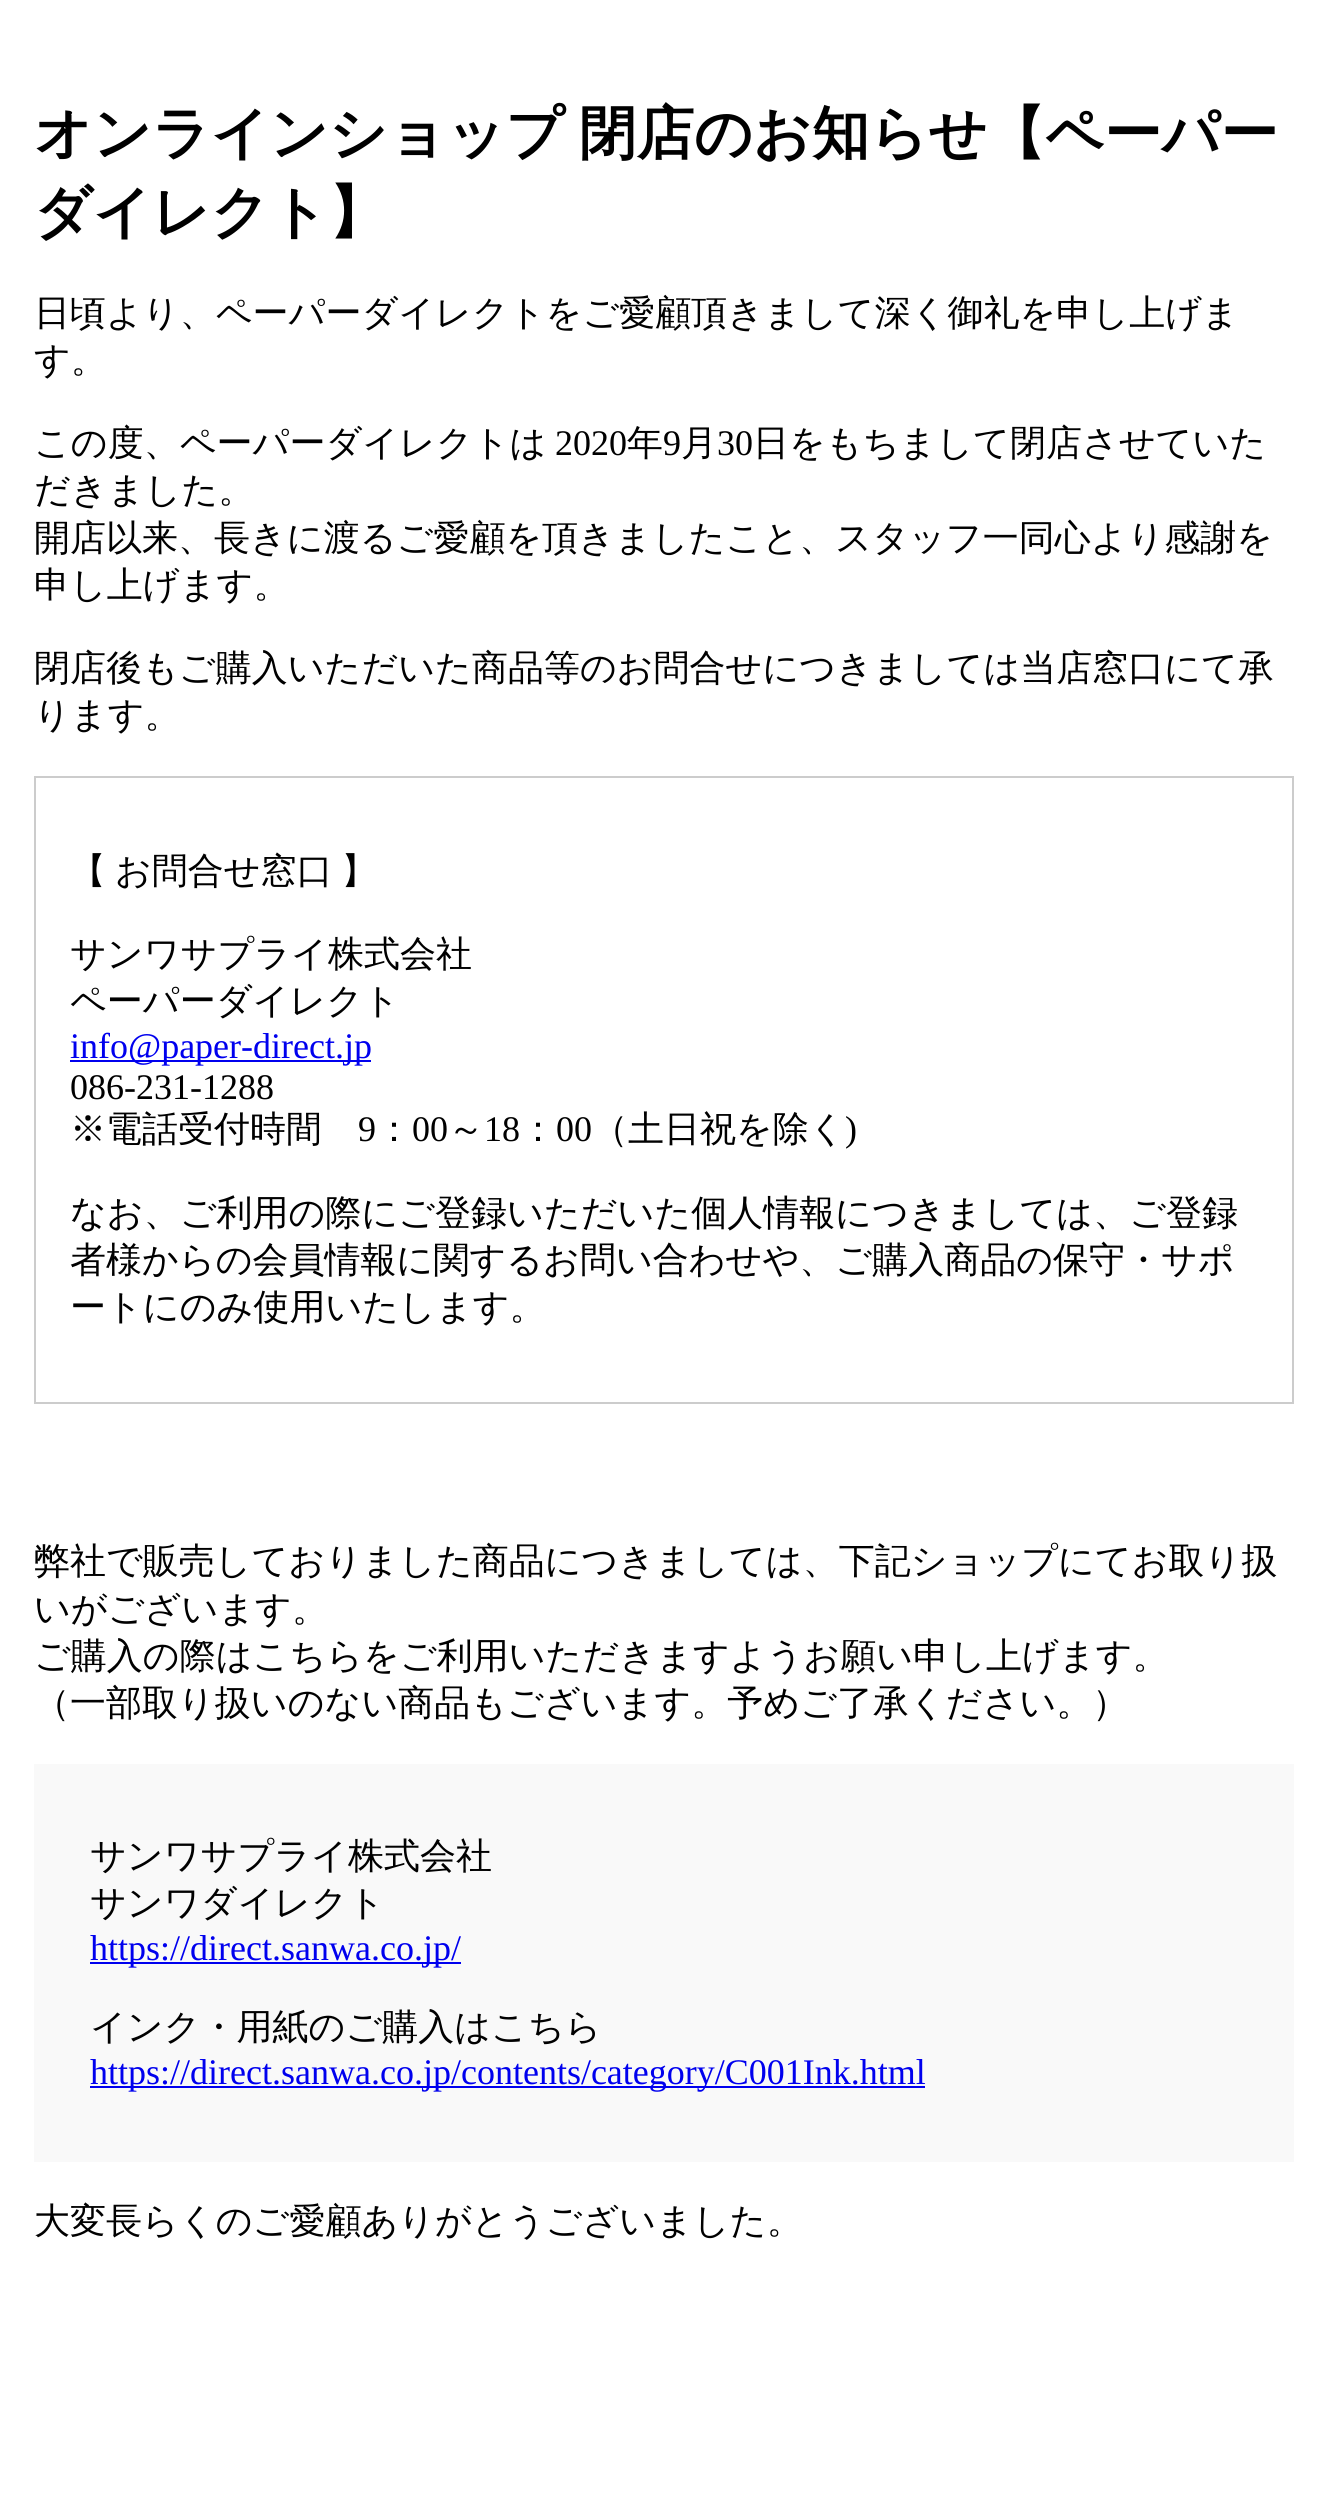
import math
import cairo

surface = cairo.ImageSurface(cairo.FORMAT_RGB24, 1327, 2504)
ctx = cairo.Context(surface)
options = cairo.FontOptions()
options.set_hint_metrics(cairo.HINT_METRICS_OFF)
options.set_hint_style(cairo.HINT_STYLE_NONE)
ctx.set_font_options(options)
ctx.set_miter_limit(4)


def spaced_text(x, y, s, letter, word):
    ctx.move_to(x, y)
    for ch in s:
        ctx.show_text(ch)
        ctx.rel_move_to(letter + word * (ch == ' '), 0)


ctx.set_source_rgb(1, 1, 1)
ctx.paint()
ctx.select_font_face("WenQuanYi Zen Hei", cairo.FONT_SLANT_NORMAL, cairo.FONT_WEIGHT_BOLD)
ctx.set_font_size(57.6)
ctx.set_source_rgb(0, 0, 0)
spaced_text(34, 153, "オンラインショップ 閉店のお知らせ【ペーパー", 0, -3)
ctx.move_to(34, 232)
ctx.show_text("ダイレクト】")
ctx.select_font_face("WenQuanYi Zen Hei Medium")
ctx.set_font_size(36)
ctx.move_to(34, 325)
ctx.show_text("日頃より、ペーパーダイレクトをご愛顧頂きまして深く御礼を申し上げま")
ctx.move_to(34, 372)
ctx.show_text("す。")
ctx.move_to(34, 455)
ctx.show_text("この度、ペーパーダイレクトは")
ctx.select_font_face("Liberation Serif")
ctx.move_to(555, 455)
ctx.show_text("2020")
ctx.select_font_face("WenQuanYi Zen Hei Medium")
ctx.move_to(627, 455)
ctx.show_text("年")
ctx.select_font_face("Liberation Serif")
ctx.move_to(663, 455)
ctx.show_text("9")
ctx.select_font_face("WenQuanYi Zen Hei Medium")
ctx.move_to(681, 455)
ctx.show_text("月")
ctx.select_font_face("Liberation Serif")
ctx.move_to(717, 455)
ctx.show_text("30")
ctx.select_font_face("WenQuanYi Zen Hei Medium")
ctx.move_to(753, 455)
ctx.show_text("日をもちまして閉店させていた")
ctx.move_to(34, 502)
ctx.show_text("だきました。")
ctx.move_to(34, 550)
ctx.show_text("開店以来、長きに渡るご愛顧を頂きましたこと、スタッフ一同心より感謝を")
ctx.move_to(34, 597)
ctx.show_text("申し上げます。")
ctx.move_to(34, 680)
ctx.show_text("閉店後もご購入いただいた商品等のお問合せにつきましては当店窓口にて承")
ctx.move_to(34, 727)
ctx.show_text("ります。")
ctx.rectangle(35, 777, 1258, 626)
ctx.set_source_rgb(0.8, 0.8, 0.8)
ctx.stroke()
ctx.set_source_rgb(0, 0, 0)
ctx.move_to(70, 883)
ctx.show_text("【")
ctx.move_to(115, 883)
ctx.show_text("お問合せ窓口")
ctx.move_to(341, 883)
ctx.show_text("】")
ctx.move_to(70, 966)
ctx.show_text("サンワサプライ株式会社")
ctx.move_to(70, 1013)
ctx.show_text("ペーパーダイレクト")
ctx.set_source_rgb(0, 0, 0.933)
ctx.rectangle(70, 1060, 301, 2)
ctx.fill()
ctx.select_font_face("Liberation Serif")
ctx.move_to(70, 1058)
ctx.show_text("info@paper-direct.jp")
ctx.set_source_rgb(0, 0, 0)
ctx.move_to(70, 1099)
ctx.show_text("086-231-1288")
ctx.select_font_face("WenQuanYi Zen Hei Medium")
ctx.move_to(70, 1141)
ctx.show_text("※電話受付時間")
ctx.select_font_face("Liberation Serif")
ctx.move_to(358, 1141)
ctx.show_text("9")
ctx.select_font_face("WenQuanYi Zen Hei Medium")
ctx.move_to(376, 1141)
ctx.show_text("：")
ctx.select_font_face("Liberation Serif")
ctx.move_to(412, 1141)
ctx.show_text("00")
ctx.select_font_face("WenQuanYi Zen Hei Medium")
ctx.move_to(448, 1141)
ctx.show_text("～")
ctx.select_font_face("Liberation Serif")
ctx.move_to(484, 1141)
ctx.show_text("18")
ctx.select_font_face("WenQuanYi Zen Hei Medium")
ctx.move_to(520, 1141)
ctx.show_text("：")
ctx.select_font_face("Liberation Serif")
ctx.move_to(556, 1141)
ctx.show_text("00")
ctx.select_font_face("WenQuanYi Zen Hei Medium")
ctx.move_to(592, 1141)
ctx.show_text("（土日祝を除く")
ctx.select_font_face("Liberation Serif")
ctx.move_to(845, 1141)
ctx.show_text(")")
ctx.select_font_face("WenQuanYi Zen Hei Medium")
ctx.move_to(70, 1225)
ctx.show_text("なお、ご利用の際にご登録いただいた個人情報につきましては、ご登録")
ctx.move_to(70, 1272)
ctx.show_text("者様からの会員情報に関するお問い合わせや、ご購入商品の保守・サポ")
ctx.move_to(70, 1319)
ctx.show_text("ートにのみ使用いたします。")
ctx.move_to(34, 1573)
ctx.show_text("弊社で販売しておりました商品につきましては、下記ショップにてお取り扱")
ctx.move_to(34, 1621)
ctx.show_text("いがございます。")
ctx.move_to(34, 1668)
ctx.show_text("ご購入の際はこちらをご利用いただきますようお願い申し上げます。")
ctx.move_to(34, 1715)
ctx.show_text("（一部取り扱いのない商品もございます。予めご了承ください。）")
ctx.set_source_rgb(0.976, 0.976, 0.976)
ctx.rectangle(34, 1764, 1260, 398)
ctx.fill()
ctx.set_source_rgb(0, 0, 0)
ctx.move_to(90, 1868)
ctx.show_text("サンワサプライ株式会社")
ctx.move_to(90, 1915)
ctx.show_text("サンワダイレクト")
ctx.set_source_rgb(0, 0, 0.933)
ctx.rectangle(90, 1962, 371, 2)
ctx.fill()
ctx.select_font_face("Liberation Serif")
ctx.move_to(90, 1960)
ctx.show_text("https://direct.sanwa.co.jp/")
ctx.select_font_face("WenQuanYi Zen Hei Medium")
ctx.set_source_rgb(0, 0, 0)
ctx.move_to(90, 2039)
ctx.show_text("インク・用紙のご購入はこちら")
ctx.set_source_rgb(0, 0, 0.933)
ctx.rectangle(90, 2086, 835, 2)
ctx.fill()
ctx.select_font_face("Liberation Serif")
ctx.move_to(90, 2084)
ctx.show_text("https://direct.sanwa.co.jp/contents/category/C001Ink.html")
ctx.select_font_face("WenQuanYi Zen Hei Medium")
ctx.set_source_rgb(0, 0, 0)
ctx.move_to(34, 2233)
ctx.show_text("大変長らくのご愛顧ありがとうございました。")
surface.write_to_png("page.png")
